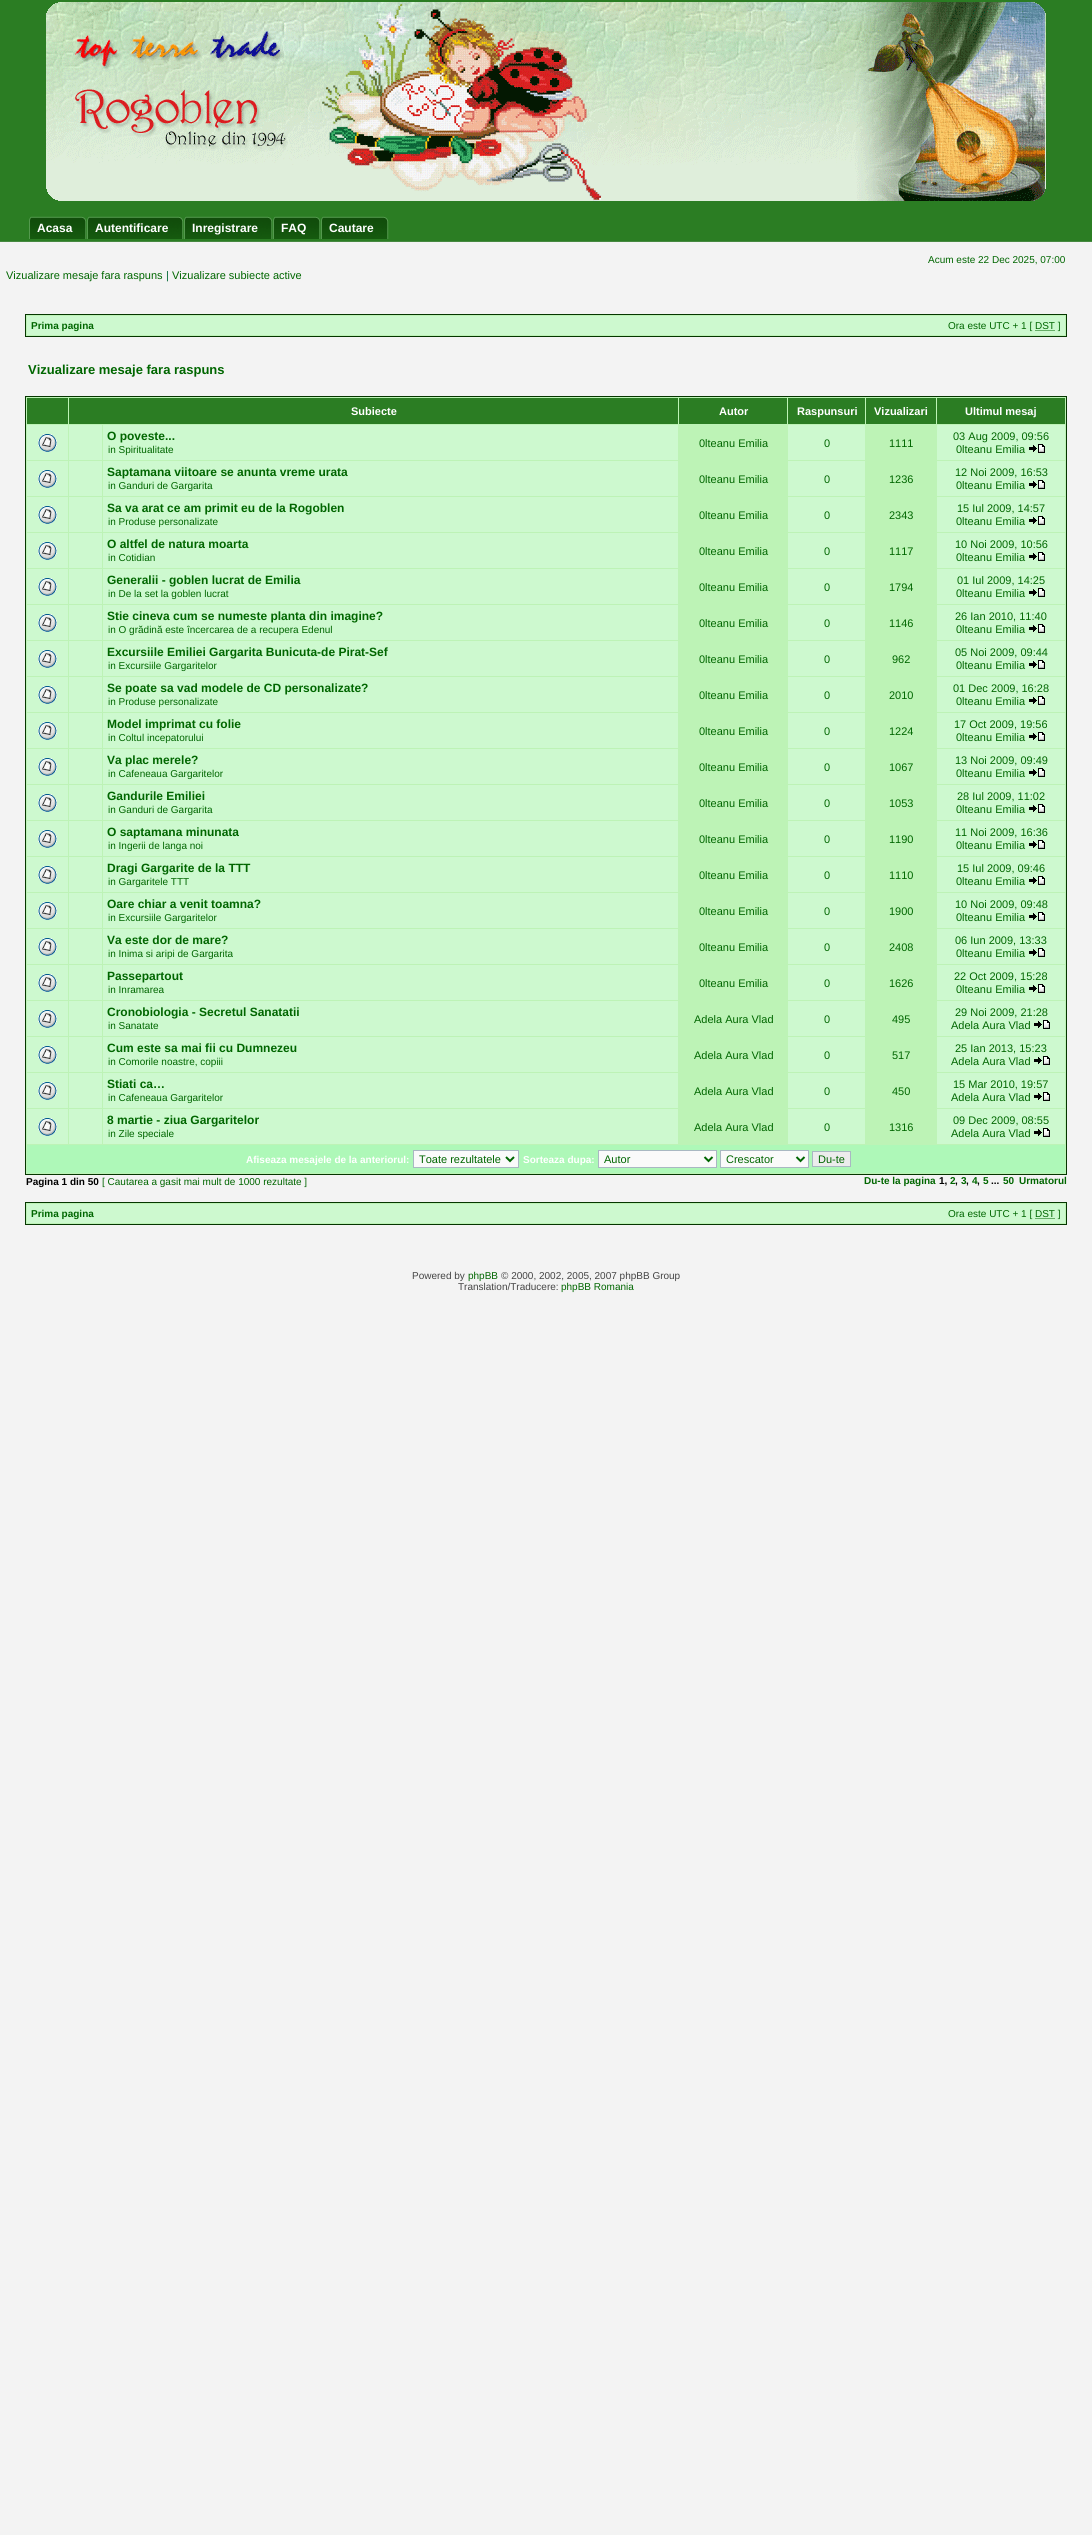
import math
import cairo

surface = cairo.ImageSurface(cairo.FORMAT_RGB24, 1092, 2535)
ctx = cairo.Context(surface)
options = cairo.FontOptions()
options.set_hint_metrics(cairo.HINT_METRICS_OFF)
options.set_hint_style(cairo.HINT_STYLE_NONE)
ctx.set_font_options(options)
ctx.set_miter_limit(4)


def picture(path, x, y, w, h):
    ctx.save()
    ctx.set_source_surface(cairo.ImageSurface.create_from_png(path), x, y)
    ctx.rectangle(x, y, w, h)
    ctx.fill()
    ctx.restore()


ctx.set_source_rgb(0.953, 0.953, 0.953)
ctx.paint()
ctx.set_source_rgb(0.169, 0.49, 0.137)
ctx.rectangle(0, 0, 1092, 241)
ctx.fill()
ctx.set_source_rgb(0.275, 0.537, 0.251)
ctx.rectangle(0, 241, 1092, 1)
ctx.fill()
picture("img1.png", 46, 2, 1000, 199)
picture("img2.png", 29, 216, 2, 23)
picture("img3.png", 31, 216, 56, 23)
ctx.select_font_face("Liberation Sans", cairo.FONT_SLANT_NORMAL, cairo.FONT_WEIGHT_BOLD)
ctx.set_font_size(12)
ctx.set_source_rgb(1, 1, 1)
ctx.move_to(37, 232)
ctx.show_text("Acasa")
picture("img2.png", 87, 216, 2, 23)
picture("img4.png", 89, 216, 95, 23)
ctx.move_to(95, 232)
ctx.show_text("Autentificare")
picture("img2.png", 184, 216, 2, 23)
picture("img5.png", 186, 216, 87, 23)
ctx.move_to(192, 232)
ctx.show_text("Inregistrare")
picture("img2.png", 273, 216, 2, 23)
picture("img6.png", 275, 216, 46, 23)
ctx.move_to(281, 232)
ctx.show_text("FAQ")
picture("img2.png", 321, 216, 2, 23)
picture("img7.png", 323, 216, 66, 23)
ctx.move_to(329, 232)
ctx.show_text("Cautare")
ctx.select_font_face("Liberation Sans")
ctx.set_font_size(10)
ctx.set_source_rgb(0, 0.4, 0)
ctx.move_to(928, 263)
ctx.show_text("Acum este 22 Dec 2025, 07:00")
ctx.set_font_size(11)
ctx.move_to(6, 279)
ctx.show_text("Vizualizare mesaje fara raspuns")
ctx.set_source_rgb(0, 0.4, 0.2)
ctx.move_to(166, 279)
ctx.show_text("|")
ctx.set_source_rgb(0, 0.4, 0)
ctx.move_to(172, 279)
ctx.show_text("Vizualizare subiecte active")
ctx.set_source_rgb(0.741, 0.953, 0.714)
ctx.rectangle(25.5, 314.5, 1041, 22)
ctx.fill_preserve()
ctx.set_source_rgb(0.02, 0.212, 0)
ctx.set_line_width(1)
ctx.stroke()
ctx.set_source_rgb(0.804, 0.973, 0.812)
ctx.rectangle(27, 316, 1038, 19)
ctx.fill()
ctx.select_font_face("Liberation Sans", cairo.FONT_SLANT_NORMAL, cairo.FONT_WEIGHT_BOLD)
ctx.set_font_size(10)
ctx.set_source_rgb(0, 0.4, 0)
ctx.move_to(31, 329)
ctx.show_text("Prima pagina")
ctx.select_font_face("Liberation Sans")
ctx.move_to(948, 329)
ctx.show_text("Ora este UTC + 1 [ DST ]")
ctx.new_path()
ctx.move_to(1035.5, 330.5)
ctx.line_to(1055.5, 330.5)
ctx.set_dash([1, 1])
ctx.stroke()
ctx.select_font_face("Liberation Sans", cairo.FONT_SLANT_NORMAL, cairo.FONT_WEIGHT_BOLD)
ctx.set_font_size(13)
ctx.move_to(28, 374)
ctx.show_text("Vizualizare mesaje fara raspuns")
ctx.set_source_rgb(0.741, 0.953, 0.714)
ctx.rectangle(25.5, 396.5, 1041, 778)
ctx.fill_preserve()
ctx.set_source_rgb(0.02, 0.212, 0)
ctx.set_dash([])
ctx.stroke()
ctx.set_source_rgb(0.169, 0.49, 0.137)
ctx.rectangle(27, 398, 41, 26)
ctx.fill()
ctx.rectangle(69, 398, 609, 26)
ctx.fill()
ctx.set_font_size(11)
ctx.set_source_rgb(1, 1, 1)
ctx.move_to(351, 415)
ctx.show_text("Subiecte")
ctx.set_source_rgb(0.169, 0.49, 0.137)
ctx.rectangle(679, 398, 108, 26)
ctx.fill()
ctx.set_source_rgb(1, 1, 1)
ctx.move_to(719, 415)
ctx.show_text("Autor")
ctx.set_source_rgb(0.169, 0.49, 0.137)
ctx.rectangle(788, 398, 77, 26)
ctx.fill()
ctx.set_source_rgb(1, 1, 1)
ctx.move_to(797, 415)
ctx.show_text("Raspunsuri")
ctx.set_source_rgb(0.169, 0.49, 0.137)
ctx.rectangle(866, 398, 70, 26)
ctx.fill()
ctx.set_source_rgb(1, 1, 1)
ctx.move_to(874, 415)
ctx.show_text("Vizualizari")
ctx.set_source_rgb(0.169, 0.49, 0.137)
ctx.rectangle(937, 398, 128, 26)
ctx.fill()
ctx.set_source_rgb(1, 1, 1)
ctx.move_to(965, 415)
ctx.show_text("Ultimul mesaj")
ctx.set_source_rgb(0.804, 0.973, 0.812)
ctx.rectangle(27, 425, 41, 35)
ctx.fill()
picture("img8.png", 38, 434, 19, 18)
ctx.rectangle(69, 425, 33, 35)
ctx.fill()
ctx.rectangle(103, 425, 575, 35)
ctx.fill()
ctx.set_font_size(12)
ctx.set_source_rgb(0, 0.4, 0)
ctx.move_to(107, 440)
ctx.show_text("O poveste...")
ctx.select_font_face("Liberation Sans")
ctx.set_font_size(10)
ctx.move_to(108, 453)
ctx.show_text("in Spiritualitate")
ctx.set_font_size(11)
ctx.move_to(699, 447)
ctx.show_text("0lteanu Emilia")
ctx.set_source_rgb(0.804, 0.973, 0.812)
ctx.rectangle(788, 425, 77, 35)
ctx.fill()
ctx.set_source_rgb(0, 0.4, 0)
ctx.move_to(824, 447)
ctx.show_text("0")
ctx.move_to(889, 447)
ctx.show_text("1111")
ctx.set_source_rgb(0.804, 0.973, 0.812)
ctx.rectangle(937, 425, 128, 35)
ctx.fill()
ctx.set_source_rgb(0, 0.4, 0)
ctx.move_to(953, 440)
ctx.show_text("03 Aug 2009, 09:56")
ctx.move_to(956, 453)
ctx.show_text("0lteanu Emilia")
picture("img9.png", 1029, 444, 16, 9)
ctx.set_source_rgb(0.804, 0.973, 0.812)
ctx.rectangle(27, 461, 41, 35)
ctx.fill()
picture("img8.png", 38, 470, 19, 18)
ctx.rectangle(69, 461, 33, 35)
ctx.fill()
ctx.rectangle(103, 461, 575, 35)
ctx.fill()
ctx.select_font_face("Liberation Sans", cairo.FONT_SLANT_NORMAL, cairo.FONT_WEIGHT_BOLD)
ctx.set_font_size(12)
ctx.set_source_rgb(0, 0.4, 0)
ctx.move_to(107, 476)
ctx.show_text("Saptamana viitoare se anunta vreme urata")
ctx.select_font_face("Liberation Sans")
ctx.set_font_size(10)
ctx.move_to(108, 489)
ctx.show_text("in Ganduri de Gargarita")
ctx.set_font_size(11)
ctx.move_to(699, 483)
ctx.show_text("0lteanu Emilia")
ctx.set_source_rgb(0.804, 0.973, 0.812)
ctx.rectangle(788, 461, 77, 35)
ctx.fill()
ctx.set_source_rgb(0, 0.4, 0)
ctx.move_to(824, 483)
ctx.show_text("0")
ctx.move_to(889, 483)
ctx.show_text("1236")
ctx.set_source_rgb(0.804, 0.973, 0.812)
ctx.rectangle(937, 461, 128, 35)
ctx.fill()
ctx.set_source_rgb(0, 0.4, 0)
ctx.move_to(955, 476)
ctx.show_text("12 Noi 2009, 16:53")
ctx.move_to(956, 489)
ctx.show_text("0lteanu Emilia")
picture("img9.png", 1029, 480, 16, 9)
ctx.set_source_rgb(0.804, 0.973, 0.812)
ctx.rectangle(27, 497, 41, 35)
ctx.fill()
picture("img8.png", 38, 506, 19, 18)
ctx.rectangle(69, 497, 33, 35)
ctx.fill()
ctx.rectangle(103, 497, 575, 35)
ctx.fill()
ctx.select_font_face("Liberation Sans", cairo.FONT_SLANT_NORMAL, cairo.FONT_WEIGHT_BOLD)
ctx.set_font_size(12)
ctx.set_source_rgb(0, 0.4, 0)
ctx.move_to(107, 512)
ctx.show_text("Sa va arat ce am primit eu de la Rogoblen")
ctx.select_font_face("Liberation Sans")
ctx.set_font_size(10)
ctx.move_to(108, 525)
ctx.show_text("in Produse personalizate")
ctx.set_font_size(11)
ctx.move_to(699, 519)
ctx.show_text("0lteanu Emilia")
ctx.set_source_rgb(0.804, 0.973, 0.812)
ctx.rectangle(788, 497, 77, 35)
ctx.fill()
ctx.set_source_rgb(0, 0.4, 0)
ctx.move_to(824, 519)
ctx.show_text("0")
ctx.move_to(889, 519)
ctx.show_text("2343")
ctx.set_source_rgb(0.804, 0.973, 0.812)
ctx.rectangle(937, 497, 128, 35)
ctx.fill()
ctx.set_source_rgb(0, 0.4, 0)
ctx.move_to(957, 512)
ctx.show_text("15 Iul 2009, 14:57")
ctx.move_to(956, 525)
ctx.show_text("0lteanu Emilia")
picture("img9.png", 1029, 516, 16, 9)
ctx.set_source_rgb(0.804, 0.973, 0.812)
ctx.rectangle(27, 533, 41, 35)
ctx.fill()
picture("img8.png", 38, 542, 19, 18)
ctx.rectangle(69, 533, 33, 35)
ctx.fill()
ctx.rectangle(103, 533, 575, 35)
ctx.fill()
ctx.select_font_face("Liberation Sans", cairo.FONT_SLANT_NORMAL, cairo.FONT_WEIGHT_BOLD)
ctx.set_font_size(12)
ctx.set_source_rgb(0, 0.4, 0)
ctx.move_to(107, 548)
ctx.show_text("O altfel de natura moarta")
ctx.select_font_face("Liberation Sans")
ctx.set_font_size(10)
ctx.move_to(108, 561)
ctx.show_text("in Cotidian")
ctx.set_font_size(11)
ctx.move_to(699, 555)
ctx.show_text("0lteanu Emilia")
ctx.set_source_rgb(0.804, 0.973, 0.812)
ctx.rectangle(788, 533, 77, 35)
ctx.fill()
ctx.set_source_rgb(0, 0.4, 0)
ctx.move_to(824, 555)
ctx.show_text("0")
ctx.move_to(889, 555)
ctx.show_text("1117")
ctx.set_source_rgb(0.804, 0.973, 0.812)
ctx.rectangle(937, 533, 128, 35)
ctx.fill()
ctx.set_source_rgb(0, 0.4, 0)
ctx.move_to(955, 548)
ctx.show_text("10 Noi 2009, 10:56")
ctx.move_to(956, 561)
ctx.show_text("0lteanu Emilia")
picture("img9.png", 1029, 552, 16, 9)
ctx.set_source_rgb(0.804, 0.973, 0.812)
ctx.rectangle(27, 569, 41, 35)
ctx.fill()
picture("img8.png", 38, 578, 19, 18)
ctx.rectangle(69, 569, 33, 35)
ctx.fill()
ctx.rectangle(103, 569, 575, 35)
ctx.fill()
ctx.select_font_face("Liberation Sans", cairo.FONT_SLANT_NORMAL, cairo.FONT_WEIGHT_BOLD)
ctx.set_font_size(12)
ctx.set_source_rgb(0, 0.4, 0)
ctx.move_to(107, 584)
ctx.show_text("Generalii - goblen lucrat de Emilia")
ctx.select_font_face("Liberation Sans")
ctx.set_font_size(10)
ctx.move_to(108, 597)
ctx.show_text("in De la set la goblen lucrat")
ctx.set_font_size(11)
ctx.move_to(699, 591)
ctx.show_text("0lteanu Emilia")
ctx.set_source_rgb(0.804, 0.973, 0.812)
ctx.rectangle(788, 569, 77, 35)
ctx.fill()
ctx.set_source_rgb(0, 0.4, 0)
ctx.move_to(824, 591)
ctx.show_text("0")
ctx.move_to(889, 591)
ctx.show_text("1794")
ctx.set_source_rgb(0.804, 0.973, 0.812)
ctx.rectangle(937, 569, 128, 35)
ctx.fill()
ctx.set_source_rgb(0, 0.4, 0)
ctx.move_to(957, 584)
ctx.show_text("01 Iul 2009, 14:25")
ctx.move_to(956, 597)
ctx.show_text("0lteanu Emilia")
picture("img9.png", 1029, 588, 16, 9)
ctx.set_source_rgb(0.804, 0.973, 0.812)
ctx.rectangle(27, 605, 41, 35)
ctx.fill()
picture("img8.png", 38, 614, 19, 18)
ctx.rectangle(69, 605, 33, 35)
ctx.fill()
ctx.rectangle(103, 605, 575, 35)
ctx.fill()
ctx.select_font_face("Liberation Sans", cairo.FONT_SLANT_NORMAL, cairo.FONT_WEIGHT_BOLD)
ctx.set_font_size(12)
ctx.set_source_rgb(0, 0.4, 0)
ctx.move_to(107, 620)
ctx.show_text("Stie cineva cum se numeste planta din imagine?")
ctx.select_font_face("Liberation Sans")
ctx.set_font_size(10)
ctx.move_to(108, 633)
ctx.show_text("in O grădină este încercarea de a recupera Edenul")
ctx.set_font_size(11)
ctx.move_to(699, 627)
ctx.show_text("0lteanu Emilia")
ctx.set_source_rgb(0.804, 0.973, 0.812)
ctx.rectangle(788, 605, 77, 35)
ctx.fill()
ctx.set_source_rgb(0, 0.4, 0)
ctx.move_to(824, 627)
ctx.show_text("0")
ctx.move_to(889, 627)
ctx.show_text("1146")
ctx.set_source_rgb(0.804, 0.973, 0.812)
ctx.rectangle(937, 605, 128, 35)
ctx.fill()
ctx.set_source_rgb(0, 0.4, 0)
ctx.move_to(955, 620)
ctx.show_text("26 Ian 2010, 11:40")
ctx.move_to(956, 633)
ctx.show_text("0lteanu Emilia")
picture("img9.png", 1029, 624, 16, 9)
ctx.set_source_rgb(0.804, 0.973, 0.812)
ctx.rectangle(27, 641, 41, 35)
ctx.fill()
picture("img8.png", 38, 650, 19, 18)
ctx.rectangle(69, 641, 33, 35)
ctx.fill()
ctx.rectangle(103, 641, 575, 35)
ctx.fill()
ctx.select_font_face("Liberation Sans", cairo.FONT_SLANT_NORMAL, cairo.FONT_WEIGHT_BOLD)
ctx.set_font_size(12)
ctx.set_source_rgb(0, 0.4, 0)
ctx.move_to(107, 656)
ctx.show_text("Excursiile Emiliei Gargarita Bunicuta-de Pirat-Sef")
ctx.select_font_face("Liberation Sans")
ctx.set_font_size(10)
ctx.move_to(108, 669)
ctx.show_text("in Excursiile Gargaritelor")
ctx.set_font_size(11)
ctx.move_to(699, 663)
ctx.show_text("0lteanu Emilia")
ctx.set_source_rgb(0.804, 0.973, 0.812)
ctx.rectangle(788, 641, 77, 35)
ctx.fill()
ctx.set_source_rgb(0, 0.4, 0)
ctx.move_to(824, 663)
ctx.show_text("0")
ctx.move_to(892, 663)
ctx.show_text("962")
ctx.set_source_rgb(0.804, 0.973, 0.812)
ctx.rectangle(937, 641, 128, 35)
ctx.fill()
ctx.set_source_rgb(0, 0.4, 0)
ctx.move_to(955, 656)
ctx.show_text("05 Noi 2009, 09:44")
ctx.move_to(956, 669)
ctx.show_text("0lteanu Emilia")
picture("img9.png", 1029, 660, 16, 9)
ctx.set_source_rgb(0.804, 0.973, 0.812)
ctx.rectangle(27, 677, 41, 35)
ctx.fill()
picture("img8.png", 38, 686, 19, 18)
ctx.rectangle(69, 677, 33, 35)
ctx.fill()
ctx.rectangle(103, 677, 575, 35)
ctx.fill()
ctx.select_font_face("Liberation Sans", cairo.FONT_SLANT_NORMAL, cairo.FONT_WEIGHT_BOLD)
ctx.set_font_size(12)
ctx.set_source_rgb(0, 0.4, 0)
ctx.move_to(107, 692)
ctx.show_text("Se poate sa vad modele de CD personalizate?")
ctx.select_font_face("Liberation Sans")
ctx.set_font_size(10)
ctx.move_to(108, 705)
ctx.show_text("in Produse personalizate")
ctx.set_font_size(11)
ctx.move_to(699, 699)
ctx.show_text("0lteanu Emilia")
ctx.set_source_rgb(0.804, 0.973, 0.812)
ctx.rectangle(788, 677, 77, 35)
ctx.fill()
ctx.set_source_rgb(0, 0.4, 0)
ctx.move_to(824, 699)
ctx.show_text("0")
ctx.move_to(889, 699)
ctx.show_text("2010")
ctx.set_source_rgb(0.804, 0.973, 0.812)
ctx.rectangle(937, 677, 128, 35)
ctx.fill()
ctx.set_source_rgb(0, 0.4, 0)
ctx.move_to(953, 692)
ctx.show_text("01 Dec 2009, 16:28")
ctx.move_to(956, 705)
ctx.show_text("0lteanu Emilia")
picture("img9.png", 1029, 696, 16, 9)
ctx.set_source_rgb(0.804, 0.973, 0.812)
ctx.rectangle(27, 713, 41, 35)
ctx.fill()
picture("img8.png", 38, 722, 19, 18)
ctx.rectangle(69, 713, 33, 35)
ctx.fill()
ctx.rectangle(103, 713, 575, 35)
ctx.fill()
ctx.select_font_face("Liberation Sans", cairo.FONT_SLANT_NORMAL, cairo.FONT_WEIGHT_BOLD)
ctx.set_font_size(12)
ctx.set_source_rgb(0, 0.4, 0)
ctx.move_to(107, 728)
ctx.show_text("Model imprimat cu folie")
ctx.select_font_face("Liberation Sans")
ctx.set_font_size(10)
ctx.move_to(108, 741)
ctx.show_text("in Coltul incepatorului")
ctx.set_font_size(11)
ctx.move_to(699, 735)
ctx.show_text("0lteanu Emilia")
ctx.set_source_rgb(0.804, 0.973, 0.812)
ctx.rectangle(788, 713, 77, 35)
ctx.fill()
ctx.set_source_rgb(0, 0.4, 0)
ctx.move_to(824, 735)
ctx.show_text("0")
ctx.move_to(889, 735)
ctx.show_text("1224")
ctx.set_source_rgb(0.804, 0.973, 0.812)
ctx.rectangle(937, 713, 128, 35)
ctx.fill()
ctx.set_source_rgb(0, 0.4, 0)
ctx.move_to(954, 728)
ctx.show_text("17 Oct 2009, 19:56")
ctx.move_to(956, 741)
ctx.show_text("0lteanu Emilia")
picture("img9.png", 1029, 732, 16, 9)
ctx.set_source_rgb(0.804, 0.973, 0.812)
ctx.rectangle(27, 749, 41, 35)
ctx.fill()
picture("img8.png", 38, 758, 19, 18)
ctx.rectangle(69, 749, 33, 35)
ctx.fill()
ctx.rectangle(103, 749, 575, 35)
ctx.fill()
ctx.select_font_face("Liberation Sans", cairo.FONT_SLANT_NORMAL, cairo.FONT_WEIGHT_BOLD)
ctx.set_font_size(12)
ctx.set_source_rgb(0, 0.4, 0)
ctx.move_to(107, 764)
ctx.show_text("Va plac merele?")
ctx.select_font_face("Liberation Sans")
ctx.set_font_size(10)
ctx.move_to(108, 777)
ctx.show_text("in Cafeneaua Gargaritelor")
ctx.set_font_size(11)
ctx.move_to(699, 771)
ctx.show_text("0lteanu Emilia")
ctx.set_source_rgb(0.804, 0.973, 0.812)
ctx.rectangle(788, 749, 77, 35)
ctx.fill()
ctx.set_source_rgb(0, 0.4, 0)
ctx.move_to(824, 771)
ctx.show_text("0")
ctx.move_to(889, 771)
ctx.show_text("1067")
ctx.set_source_rgb(0.804, 0.973, 0.812)
ctx.rectangle(937, 749, 128, 35)
ctx.fill()
ctx.set_source_rgb(0, 0.4, 0)
ctx.move_to(955, 764)
ctx.show_text("13 Noi 2009, 09:49")
ctx.move_to(956, 777)
ctx.show_text("0lteanu Emilia")
picture("img9.png", 1029, 768, 16, 9)
ctx.set_source_rgb(0.804, 0.973, 0.812)
ctx.rectangle(27, 785, 41, 35)
ctx.fill()
picture("img8.png", 38, 794, 19, 18)
ctx.rectangle(69, 785, 33, 35)
ctx.fill()
ctx.rectangle(103, 785, 575, 35)
ctx.fill()
ctx.select_font_face("Liberation Sans", cairo.FONT_SLANT_NORMAL, cairo.FONT_WEIGHT_BOLD)
ctx.set_font_size(12)
ctx.set_source_rgb(0, 0.4, 0)
ctx.move_to(107, 800)
ctx.show_text("Gandurile Emiliei")
ctx.select_font_face("Liberation Sans")
ctx.set_font_size(10)
ctx.move_to(108, 813)
ctx.show_text("in Ganduri de Gargarita")
ctx.set_font_size(11)
ctx.move_to(699, 807)
ctx.show_text("0lteanu Emilia")
ctx.set_source_rgb(0.804, 0.973, 0.812)
ctx.rectangle(788, 785, 77, 35)
ctx.fill()
ctx.set_source_rgb(0, 0.4, 0)
ctx.move_to(824, 807)
ctx.show_text("0")
ctx.move_to(889, 807)
ctx.show_text("1053")
ctx.set_source_rgb(0.804, 0.973, 0.812)
ctx.rectangle(937, 785, 128, 35)
ctx.fill()
ctx.set_source_rgb(0, 0.4, 0)
ctx.move_to(957, 800)
ctx.show_text("28 Iul 2009, 11:02")
ctx.move_to(956, 813)
ctx.show_text("0lteanu Emilia")
picture("img9.png", 1029, 804, 16, 9)
ctx.set_source_rgb(0.804, 0.973, 0.812)
ctx.rectangle(27, 821, 41, 35)
ctx.fill()
picture("img8.png", 38, 830, 19, 18)
ctx.rectangle(69, 821, 33, 35)
ctx.fill()
ctx.rectangle(103, 821, 575, 35)
ctx.fill()
ctx.select_font_face("Liberation Sans", cairo.FONT_SLANT_NORMAL, cairo.FONT_WEIGHT_BOLD)
ctx.set_font_size(12)
ctx.set_source_rgb(0, 0.4, 0)
ctx.move_to(107, 836)
ctx.show_text("O saptamana minunata")
ctx.select_font_face("Liberation Sans")
ctx.set_font_size(10)
ctx.move_to(108, 849)
ctx.show_text("in Ingerii de langa noi")
ctx.set_font_size(11)
ctx.move_to(699, 843)
ctx.show_text("0lteanu Emilia")
ctx.set_source_rgb(0.804, 0.973, 0.812)
ctx.rectangle(788, 821, 77, 35)
ctx.fill()
ctx.set_source_rgb(0, 0.4, 0)
ctx.move_to(824, 843)
ctx.show_text("0")
ctx.move_to(889, 843)
ctx.show_text("1190")
ctx.set_source_rgb(0.804, 0.973, 0.812)
ctx.rectangle(937, 821, 128, 35)
ctx.fill()
ctx.set_source_rgb(0, 0.4, 0)
ctx.move_to(955, 836)
ctx.show_text("11 Noi 2009, 16:36")
ctx.move_to(956, 849)
ctx.show_text("0lteanu Emilia")
picture("img9.png", 1029, 840, 16, 9)
ctx.set_source_rgb(0.804, 0.973, 0.812)
ctx.rectangle(27, 857, 41, 35)
ctx.fill()
picture("img8.png", 38, 866, 19, 18)
ctx.rectangle(69, 857, 33, 35)
ctx.fill()
ctx.rectangle(103, 857, 575, 35)
ctx.fill()
ctx.select_font_face("Liberation Sans", cairo.FONT_SLANT_NORMAL, cairo.FONT_WEIGHT_BOLD)
ctx.set_font_size(12)
ctx.set_source_rgb(0, 0.4, 0)
ctx.move_to(107, 872)
ctx.show_text("Dragi Gargarite de la TTT")
ctx.select_font_face("Liberation Sans")
ctx.set_font_size(10)
ctx.move_to(108, 885)
ctx.show_text("in Gargaritele TTT")
ctx.set_font_size(11)
ctx.move_to(699, 879)
ctx.show_text("0lteanu Emilia")
ctx.set_source_rgb(0.804, 0.973, 0.812)
ctx.rectangle(788, 857, 77, 35)
ctx.fill()
ctx.set_source_rgb(0, 0.4, 0)
ctx.move_to(824, 879)
ctx.show_text("0")
ctx.move_to(889, 879)
ctx.show_text("1110")
ctx.set_source_rgb(0.804, 0.973, 0.812)
ctx.rectangle(937, 857, 128, 35)
ctx.fill()
ctx.set_source_rgb(0, 0.4, 0)
ctx.move_to(957, 872)
ctx.show_text("15 Iul 2009, 09:46")
ctx.move_to(956, 885)
ctx.show_text("0lteanu Emilia")
picture("img9.png", 1029, 876, 16, 9)
ctx.set_source_rgb(0.804, 0.973, 0.812)
ctx.rectangle(27, 893, 41, 35)
ctx.fill()
picture("img8.png", 38, 902, 19, 18)
ctx.rectangle(69, 893, 33, 35)
ctx.fill()
ctx.rectangle(103, 893, 575, 35)
ctx.fill()
ctx.select_font_face("Liberation Sans", cairo.FONT_SLANT_NORMAL, cairo.FONT_WEIGHT_BOLD)
ctx.set_font_size(12)
ctx.set_source_rgb(0, 0.4, 0)
ctx.move_to(107, 908)
ctx.show_text("Oare chiar a venit toamna?")
ctx.select_font_face("Liberation Sans")
ctx.set_font_size(10)
ctx.move_to(108, 921)
ctx.show_text("in Excursiile Gargaritelor")
ctx.set_font_size(11)
ctx.move_to(699, 915)
ctx.show_text("0lteanu Emilia")
ctx.set_source_rgb(0.804, 0.973, 0.812)
ctx.rectangle(788, 893, 77, 35)
ctx.fill()
ctx.set_source_rgb(0, 0.4, 0)
ctx.move_to(824, 915)
ctx.show_text("0")
ctx.move_to(889, 915)
ctx.show_text("1900")
ctx.set_source_rgb(0.804, 0.973, 0.812)
ctx.rectangle(937, 893, 128, 35)
ctx.fill()
ctx.set_source_rgb(0, 0.4, 0)
ctx.move_to(955, 908)
ctx.show_text("10 Noi 2009, 09:48")
ctx.move_to(956, 921)
ctx.show_text("0lteanu Emilia")
picture("img9.png", 1029, 912, 16, 9)
ctx.set_source_rgb(0.804, 0.973, 0.812)
ctx.rectangle(27, 929, 41, 35)
ctx.fill()
picture("img8.png", 38, 938, 19, 18)
ctx.rectangle(69, 929, 33, 35)
ctx.fill()
ctx.rectangle(103, 929, 575, 35)
ctx.fill()
ctx.select_font_face("Liberation Sans", cairo.FONT_SLANT_NORMAL, cairo.FONT_WEIGHT_BOLD)
ctx.set_font_size(12)
ctx.set_source_rgb(0, 0.4, 0)
ctx.move_to(107, 944)
ctx.show_text("Va este dor de mare?")
ctx.select_font_face("Liberation Sans")
ctx.set_font_size(10)
ctx.move_to(108, 957)
ctx.show_text("in Inima si aripi de Gargarita")
ctx.set_font_size(11)
ctx.move_to(699, 951)
ctx.show_text("0lteanu Emilia")
ctx.set_source_rgb(0.804, 0.973, 0.812)
ctx.rectangle(788, 929, 77, 35)
ctx.fill()
ctx.set_source_rgb(0, 0.4, 0)
ctx.move_to(824, 951)
ctx.show_text("0")
ctx.move_to(889, 951)
ctx.show_text("2408")
ctx.set_source_rgb(0.804, 0.973, 0.812)
ctx.rectangle(937, 929, 128, 35)
ctx.fill()
ctx.set_source_rgb(0, 0.4, 0)
ctx.move_to(955, 944)
ctx.show_text("06 Iun 2009, 13:33")
ctx.move_to(956, 957)
ctx.show_text("0lteanu Emilia")
picture("img9.png", 1029, 948, 16, 9)
ctx.set_source_rgb(0.804, 0.973, 0.812)
ctx.rectangle(27, 965, 41, 35)
ctx.fill()
picture("img8.png", 38, 974, 19, 18)
ctx.rectangle(69, 965, 33, 35)
ctx.fill()
ctx.rectangle(103, 965, 575, 35)
ctx.fill()
ctx.select_font_face("Liberation Sans", cairo.FONT_SLANT_NORMAL, cairo.FONT_WEIGHT_BOLD)
ctx.set_font_size(12)
ctx.set_source_rgb(0, 0.4, 0)
ctx.move_to(107, 980)
ctx.show_text("Passepartout")
ctx.select_font_face("Liberation Sans")
ctx.set_font_size(10)
ctx.move_to(108, 993)
ctx.show_text("in Inramarea")
ctx.set_font_size(11)
ctx.move_to(699, 987)
ctx.show_text("0lteanu Emilia")
ctx.set_source_rgb(0.804, 0.973, 0.812)
ctx.rectangle(788, 965, 77, 35)
ctx.fill()
ctx.set_source_rgb(0, 0.4, 0)
ctx.move_to(824, 987)
ctx.show_text("0")
ctx.move_to(889, 987)
ctx.show_text("1626")
ctx.set_source_rgb(0.804, 0.973, 0.812)
ctx.rectangle(937, 965, 128, 35)
ctx.fill()
ctx.set_source_rgb(0, 0.4, 0)
ctx.move_to(954, 980)
ctx.show_text("22 Oct 2009, 15:28")
ctx.move_to(956, 993)
ctx.show_text("0lteanu Emilia")
picture("img9.png", 1029, 984, 16, 9)
ctx.set_source_rgb(0.804, 0.973, 0.812)
ctx.rectangle(27, 1001, 41, 35)
ctx.fill()
picture("img8.png", 38, 1010, 19, 18)
ctx.rectangle(69, 1001, 33, 35)
ctx.fill()
ctx.rectangle(103, 1001, 575, 35)
ctx.fill()
ctx.select_font_face("Liberation Sans", cairo.FONT_SLANT_NORMAL, cairo.FONT_WEIGHT_BOLD)
ctx.set_font_size(12)
ctx.set_source_rgb(0, 0.4, 0)
ctx.move_to(107, 1016)
ctx.show_text("Cronobiologia - Secretul Sanatatii")
ctx.select_font_face("Liberation Sans")
ctx.set_font_size(10)
ctx.move_to(108, 1029)
ctx.show_text("in Sanatate")
ctx.set_font_size(11)
ctx.move_to(694, 1023)
ctx.show_text("Adela Aura Vlad")
ctx.set_source_rgb(0.804, 0.973, 0.812)
ctx.rectangle(788, 1001, 77, 35)
ctx.fill()
ctx.set_source_rgb(0, 0.4, 0)
ctx.move_to(824, 1023)
ctx.show_text("0")
ctx.move_to(892, 1023)
ctx.show_text("495")
ctx.set_source_rgb(0.804, 0.973, 0.812)
ctx.rectangle(937, 1001, 128, 35)
ctx.fill()
ctx.set_source_rgb(0, 0.4, 0)
ctx.move_to(955, 1016)
ctx.show_text("29 Noi 2009, 21:28")
ctx.move_to(951, 1029)
ctx.show_text("Adela Aura Vlad")
picture("img9.png", 1034, 1020, 16, 9)
ctx.set_source_rgb(0.804, 0.973, 0.812)
ctx.rectangle(27, 1037, 41, 35)
ctx.fill()
picture("img8.png", 38, 1046, 19, 18)
ctx.rectangle(69, 1037, 33, 35)
ctx.fill()
ctx.rectangle(103, 1037, 575, 35)
ctx.fill()
ctx.select_font_face("Liberation Sans", cairo.FONT_SLANT_NORMAL, cairo.FONT_WEIGHT_BOLD)
ctx.set_font_size(12)
ctx.set_source_rgb(0, 0.4, 0)
ctx.move_to(107, 1052)
ctx.show_text("Cum este sa mai fii cu Dumnezeu")
ctx.select_font_face("Liberation Sans")
ctx.set_font_size(10)
ctx.move_to(108, 1065)
ctx.show_text("in Comorile noastre, copiii")
ctx.set_font_size(11)
ctx.move_to(694, 1059)
ctx.show_text("Adela Aura Vlad")
ctx.set_source_rgb(0.804, 0.973, 0.812)
ctx.rectangle(788, 1037, 77, 35)
ctx.fill()
ctx.set_source_rgb(0, 0.4, 0)
ctx.move_to(824, 1059)
ctx.show_text("0")
ctx.move_to(892, 1059)
ctx.show_text("517")
ctx.set_source_rgb(0.804, 0.973, 0.812)
ctx.rectangle(937, 1037, 128, 35)
ctx.fill()
ctx.set_source_rgb(0, 0.4, 0)
ctx.move_to(955, 1052)
ctx.show_text("25 Ian 2013, 15:23")
ctx.move_to(951, 1065)
ctx.show_text("Adela Aura Vlad")
picture("img9.png", 1034, 1056, 16, 9)
ctx.set_source_rgb(0.804, 0.973, 0.812)
ctx.rectangle(27, 1073, 41, 35)
ctx.fill()
picture("img8.png", 38, 1082, 19, 18)
ctx.rectangle(69, 1073, 33, 35)
ctx.fill()
ctx.rectangle(103, 1073, 575, 35)
ctx.fill()
ctx.select_font_face("Liberation Sans", cairo.FONT_SLANT_NORMAL, cairo.FONT_WEIGHT_BOLD)
ctx.set_font_size(12)
ctx.set_source_rgb(0, 0.4, 0)
ctx.move_to(107, 1088)
ctx.show_text("Stiati ca…")
ctx.select_font_face("Liberation Sans")
ctx.set_font_size(10)
ctx.move_to(108, 1101)
ctx.show_text("in Cafeneaua Gargaritelor")
ctx.set_font_size(11)
ctx.move_to(694, 1095)
ctx.show_text("Adela Aura Vlad")
ctx.set_source_rgb(0.804, 0.973, 0.812)
ctx.rectangle(788, 1073, 77, 35)
ctx.fill()
ctx.set_source_rgb(0, 0.4, 0)
ctx.move_to(824, 1095)
ctx.show_text("0")
ctx.move_to(892, 1095)
ctx.show_text("450")
ctx.set_source_rgb(0.804, 0.973, 0.812)
ctx.rectangle(937, 1073, 128, 35)
ctx.fill()
ctx.set_source_rgb(0, 0.4, 0)
ctx.move_to(953, 1088)
ctx.show_text("15 Mar 2010, 19:57")
ctx.move_to(951, 1101)
ctx.show_text("Adela Aura Vlad")
picture("img9.png", 1034, 1092, 16, 9)
ctx.set_source_rgb(0.804, 0.973, 0.812)
ctx.rectangle(27, 1109, 41, 35)
ctx.fill()
picture("img8.png", 38, 1118, 19, 18)
ctx.rectangle(69, 1109, 33, 35)
ctx.fill()
ctx.rectangle(103, 1109, 575, 35)
ctx.fill()
ctx.select_font_face("Liberation Sans", cairo.FONT_SLANT_NORMAL, cairo.FONT_WEIGHT_BOLD)
ctx.set_font_size(12)
ctx.set_source_rgb(0, 0.4, 0)
ctx.move_to(107, 1124)
ctx.show_text("8 martie - ziua Gargaritelor")
ctx.select_font_face("Liberation Sans")
ctx.set_font_size(10)
ctx.move_to(108, 1137)
ctx.show_text("in Zile speciale")
ctx.set_font_size(11)
ctx.move_to(694, 1131)
ctx.show_text("Adela Aura Vlad")
ctx.set_source_rgb(0.804, 0.973, 0.812)
ctx.rectangle(788, 1109, 77, 35)
ctx.fill()
ctx.set_source_rgb(0, 0.4, 0)
ctx.move_to(824, 1131)
ctx.show_text("0")
ctx.move_to(889, 1131)
ctx.show_text("1316")
ctx.set_source_rgb(0.804, 0.973, 0.812)
ctx.rectangle(937, 1109, 128, 35)
ctx.fill()
ctx.set_source_rgb(0, 0.4, 0)
ctx.move_to(953, 1124)
ctx.show_text("09 Dec 2009, 08:55")
ctx.move_to(951, 1137)
ctx.show_text("Adela Aura Vlad")
picture("img9.png", 1034, 1128, 16, 9)
ctx.set_source_rgb(0.682, 0.969, 0.722)
ctx.rectangle(27, 1145, 1038, 28)
ctx.fill()
ctx.select_font_face("Liberation Sans", cairo.FONT_SLANT_NORMAL, cairo.FONT_WEIGHT_BOLD)
ctx.set_font_size(10)
ctx.set_source_rgb(1, 1, 1)
ctx.move_to(246, 1163)
ctx.show_text("Afiseaza mesajele de la anteriorul:")
ctx.set_source_rgb(0.98, 0.98, 0.98)
ctx.rectangle(413.5, 1150.5, 105, 17)
ctx.fill_preserve()
ctx.set_source_rgb(0.663, 0.722, 0.761)
ctx.stroke()
ctx.new_path()
ctx.move_to(506, 1157)
ctx.line_to(510, 1161)
ctx.line_to(514, 1157)
ctx.set_source_rgb(0, 0.4, 0)
ctx.set_line_width(2)
ctx.stroke()
ctx.select_font_face("Liberation Sans")
ctx.set_font_size(11)
ctx.move_to(419, 1163)
ctx.show_text("Toate rezultatele")
ctx.select_font_face("Liberation Sans", cairo.FONT_SLANT_NORMAL, cairo.FONT_WEIGHT_BOLD)
ctx.set_font_size(10)
ctx.set_source_rgb(1, 1, 1)
ctx.move_to(523, 1163)
ctx.show_text("Sorteaza dupa:")
ctx.set_source_rgb(0.98, 0.98, 0.98)
ctx.rectangle(598.5, 1150.5, 118, 17)
ctx.fill_preserve()
ctx.set_source_rgb(0.663, 0.722, 0.761)
ctx.set_line_width(1)
ctx.stroke()
ctx.new_path()
ctx.move_to(704.5, 1157)
ctx.line_to(708.5, 1161)
ctx.line_to(712.5, 1157)
ctx.set_source_rgb(0, 0.4, 0)
ctx.set_line_width(2)
ctx.stroke()
ctx.select_font_face("Liberation Sans")
ctx.set_font_size(11)
ctx.move_to(604, 1163)
ctx.show_text("Autor")
ctx.set_source_rgb(0.98, 0.98, 0.98)
ctx.rectangle(720.5, 1150.5, 88, 17)
ctx.fill_preserve()
ctx.set_source_rgb(0.663, 0.722, 0.761)
ctx.set_line_width(1)
ctx.stroke()
ctx.new_path()
ctx.move_to(796.5, 1157)
ctx.line_to(800.5, 1161)
ctx.line_to(804.5, 1157)
ctx.set_source_rgb(0, 0.4, 0)
ctx.set_line_width(2)
ctx.stroke()
ctx.move_to(726, 1163)
ctx.show_text("Crescator")
ctx.set_source_rgb(0.925, 0.925, 0.925)
ctx.rectangle(812.5, 1151.5, 38, 15)
ctx.fill_preserve()
ctx.set_source_rgb(0.663, 0.722, 0.761)
ctx.set_line_width(1)
ctx.stroke()
ctx.set_source_rgb(0, 0.4, 0)
ctx.move_to(818, 1163)
ctx.show_text("Du-te")
ctx.select_font_face("Liberation Sans", cairo.FONT_SLANT_NORMAL, cairo.FONT_WEIGHT_BOLD)
ctx.set_font_size(10)
ctx.set_source_rgb(0, 0, 0)
ctx.move_to(26, 1185)
ctx.show_text("Pagina 1 din 50")
ctx.select_font_face("Liberation Sans")
ctx.set_source_rgb(0, 0.4, 0)
ctx.move_to(102, 1185)
ctx.show_text("[ Cautarea a gasit mai mult de 1000 rezultate ]")
ctx.select_font_face("Liberation Sans", cairo.FONT_SLANT_NORMAL, cairo.FONT_WEIGHT_BOLD)
ctx.move_to(864, 1184)
ctx.show_text("Du-te la pagina")
ctx.set_source_rgb(0, 0, 0)
ctx.move_to(939, 1184)
ctx.show_text("1,")
ctx.set_source_rgb(0, 0.4, 0)
ctx.move_to(950, 1184)
ctx.show_text("2")
ctx.set_source_rgb(0, 0, 0)
ctx.move_to(955, 1184)
ctx.show_text(",")
ctx.set_source_rgb(0, 0.4, 0)
ctx.move_to(961, 1184)
ctx.show_text("3")
ctx.set_source_rgb(0, 0, 0)
ctx.move_to(966, 1184)
ctx.show_text(",")
ctx.set_source_rgb(0, 0.4, 0)
ctx.move_to(972, 1184)
ctx.show_text("4")
ctx.set_source_rgb(0, 0, 0)
ctx.move_to(977, 1184)
ctx.show_text(",")
ctx.set_source_rgb(0, 0.4, 0)
ctx.move_to(983, 1184)
ctx.show_text("5")
ctx.set_source_rgb(0, 0, 0)
ctx.move_to(991, 1184)
ctx.show_text("...")
ctx.set_source_rgb(0, 0.4, 0)
ctx.move_to(1003, 1184)
ctx.show_text("50")
ctx.move_to(1019, 1184)
ctx.show_text("Urmatorul")
ctx.set_source_rgb(0.741, 0.953, 0.714)
ctx.rectangle(25.5, 1202.5, 1041, 22)
ctx.fill_preserve()
ctx.set_source_rgb(0.02, 0.212, 0)
ctx.stroke()
ctx.set_source_rgb(0.804, 0.973, 0.812)
ctx.rectangle(27, 1204, 1038, 19)
ctx.fill()
ctx.set_source_rgb(0, 0.4, 0)
ctx.move_to(31, 1217)
ctx.show_text("Prima pagina")
ctx.select_font_face("Liberation Sans")
ctx.move_to(948, 1217)
ctx.show_text("Ora este UTC + 1 [ DST ]")
ctx.new_path()
ctx.move_to(1035.5, 1218.5)
ctx.line_to(1055.5, 1218.5)
ctx.set_dash([1, 1])
ctx.stroke()
ctx.set_source_rgb(0.267, 0.267, 0.267)
ctx.move_to(412, 1279)
ctx.show_text("Powered by")
ctx.set_source_rgb(0, 0.4, 0)
ctx.move_to(468, 1279)
ctx.show_text("phpBB")
ctx.set_source_rgb(0.267, 0.267, 0.267)
ctx.move_to(501, 1279)
ctx.show_text("© 2000, 2002, 2005, 2007 phpBB Group")
ctx.move_to(458, 1290)
ctx.show_text("Translation/Traducere:")
ctx.set_source_rgb(0, 0.4, 0)
ctx.move_to(561, 1290)
ctx.show_text("phpBB Romania")
surface.write_to_png("page.png")
